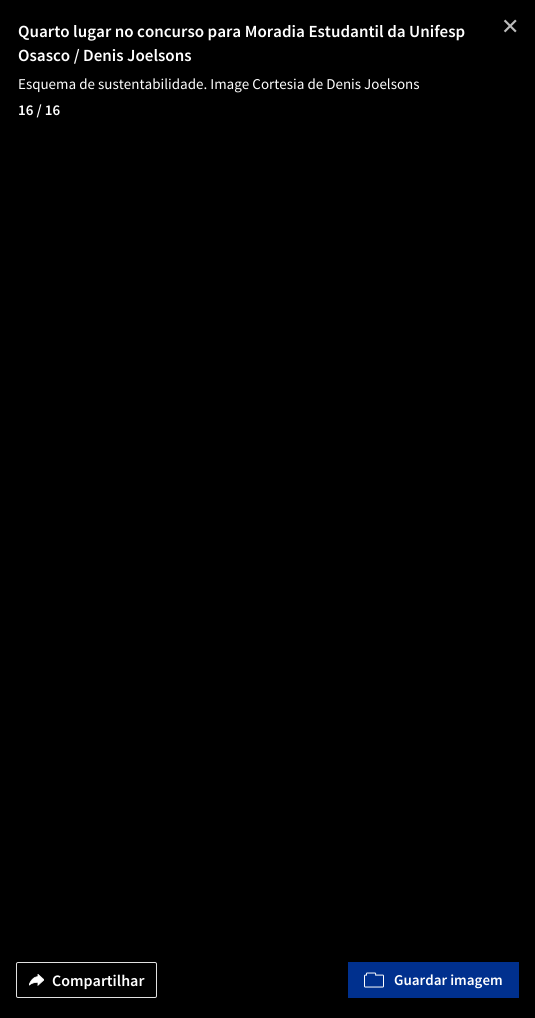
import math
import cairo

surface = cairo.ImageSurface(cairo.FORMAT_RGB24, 535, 1018)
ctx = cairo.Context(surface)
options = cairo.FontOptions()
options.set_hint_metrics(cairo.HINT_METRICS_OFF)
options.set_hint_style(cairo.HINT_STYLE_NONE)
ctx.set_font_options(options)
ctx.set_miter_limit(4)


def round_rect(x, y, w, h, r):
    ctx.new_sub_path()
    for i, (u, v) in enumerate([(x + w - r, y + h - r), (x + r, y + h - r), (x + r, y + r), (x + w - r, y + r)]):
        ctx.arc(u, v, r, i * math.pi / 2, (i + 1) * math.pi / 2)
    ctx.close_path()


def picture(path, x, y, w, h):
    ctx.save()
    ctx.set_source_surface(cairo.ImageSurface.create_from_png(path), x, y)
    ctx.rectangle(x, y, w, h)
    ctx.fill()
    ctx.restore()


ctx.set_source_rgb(0, 0, 0)
ctx.paint()
ctx.select_font_face("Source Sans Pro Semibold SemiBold")
ctx.set_font_size(17)
ctx.set_source_rgb(1, 1, 1)
ctx.move_to(18, 37)
ctx.show_text("Quarto lugar no concurso para Moradia Estudantil da Unifesp")
ctx.move_to(18, 61)
ctx.show_text("Osasco / Denis Joelsons")
ctx.select_font_face("Source Sans Pro")
ctx.set_font_size(15)
ctx.move_to(18, 89)
ctx.show_text("Esquema de sustentabilidade. Image Cortesia de Denis Joelsons")
ctx.select_font_face("Source Sans Pro Semibold SemiBold")
ctx.move_to(18, 115)
ctx.show_text("16 / 16")
ctx.select_font_face("DejaVu Sans")
ctx.set_font_size(22)
ctx.set_source_rgb(0.733, 0.733, 0.733)
ctx.move_to(501, 34)
ctx.show_text("✕")
round_rect(16.5, 962.5, 140, 35, 1.5)
ctx.set_source_rgb(0.882, 0.882, 0.882)
ctx.set_line_width(1)
ctx.stroke()
picture("img1.png", 29, 974, 15, 12)
ctx.select_font_face("Source Sans Pro Semibold SemiBold")
ctx.set_font_size(16)
ctx.set_source_rgb(1, 1, 1)
ctx.move_to(52, 986)
ctx.show_text("Compartilhar")
ctx.set_source_rgb(0, 0.188, 0.557)
ctx.rectangle(348, 962, 171, 36)
ctx.fill()
picture("img2.png", 364, 972, 20, 16)
ctx.set_font_size(15)
ctx.set_source_rgb(1, 1, 1)
ctx.move_to(394, 985)
ctx.show_text("Guardar imagem")
surface.write_to_png("page.png")
